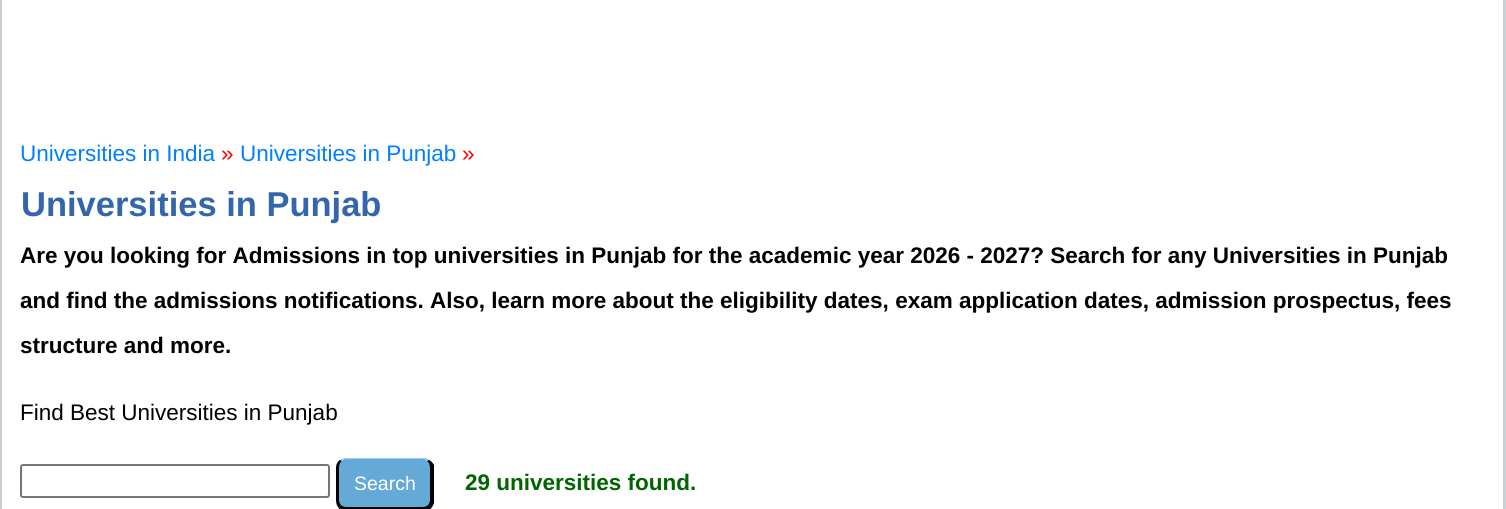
import math
import cairo

surface = cairo.ImageSurface(cairo.FORMAT_RGB24, 1506, 509)
ctx = cairo.Context(surface)
options = cairo.FontOptions()
options.set_hint_metrics(cairo.HINT_METRICS_OFF)
options.set_hint_style(cairo.HINT_STYLE_NONE)
ctx.set_font_options(options)
ctx.set_miter_limit(4)


def round_rect(x, y, w, h, r):
    ctx.new_sub_path()
    for i, (u, v) in enumerate([(x + w - r, y + h - r), (x + r, y + h - r), (x + r, y + r), (x + w - r, y + r)]):
        ctx.arc(u, v, r, i * math.pi / 2, (i + 1) * math.pi / 2)
    ctx.close_path()


def shadow(x, y, w, h, r, blur, alpha):
    ctx.push_group_with_content(cairo.CONTENT_ALPHA)
    ctx.set_operator(cairo.OPERATOR_SOURCE)
    for i in range(15, -16, -2):
        e = blur * i / 6
        if min(w, h) + 2 * e > 0:
            ctx.set_source_rgba(0, 0, 0, alpha * math.erfc((i - 1) / 8.5) / 2)
            round_rect(x - e, y - e, w + 2 * e, h + 2 * e, max(0, min(r + e + blur * .6, min(w, h) / 2 + e)))
            ctx.fill()
    ctx.mask(ctx.pop_group())


ctx.set_source_rgb(0.863, 0.902, 0.957)
ctx.paint()
ctx.set_source_rgb(0.196, 0.196, 0.196)
shadow(0, -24, 1505, 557, 15, 3, 0.18)
ctx.set_source_rgb(1, 1, 1)
ctx.rectangle(1, -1, 1503, 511)
ctx.fill_preserve()
ctx.set_source_rgb(0.8, 0.8, 0.8)
ctx.stroke()
ctx.select_font_face("Liberation Sans")
ctx.set_font_size(22.5)
ctx.set_source_rgb(0, 0.502, 1)
ctx.move_to(20, 161)
ctx.show_text("Universities in India")
ctx.set_source_rgb(1, 0, 0)
ctx.move_to(221, 161)
ctx.show_text("»")
ctx.set_source_rgb(0, 0.502, 1)
ctx.move_to(240, 161)
ctx.show_text("Universities in Punjab")
ctx.set_source_rgb(1, 0, 0)
ctx.move_to(462, 161)
ctx.show_text("»")
ctx.select_font_face("Liberation Sans", cairo.FONT_SLANT_NORMAL, cairo.FONT_WEIGHT_BOLD)
ctx.set_font_size(34.5)
ctx.set_source_rgb(0.2, 0.4, 0.667)
ctx.move_to(21, 216)
ctx.show_text("Universities in Punjab")
ctx.set_font_size(22.5)
ctx.set_source_rgb(0, 0, 0)
ctx.move_to(20, 263)
ctx.show_text("Are you looking for Admissions in top universities in Punjab for the academic year 2026 - 2027? Search for any Universities in Punjab")
ctx.move_to(20, 308)
ctx.show_text("and find the admissions notifications. Also, learn more about the eligibility dates, exam application dates, admission prospectus, fees")
ctx.move_to(20, 353)
ctx.show_text("structure and more.")
ctx.select_font_face("Liberation Sans")
ctx.move_to(20, 420)
ctx.show_text("Find Best Universities in Punjab")
round_rect(21, 465, 308, 32, 2)
ctx.set_source_rgb(0.463, 0.463, 0.463)
ctx.stroke()
ctx.set_source_rgb(0, 0, 0)
ctx.new_path()
ctx.move_to(336, 500)
ctx.line_to(336, 501)
ctx.curve_to(336, 507, 341, 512, 347, 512)
ctx.line_to(423, 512)
ctx.curve_to(429, 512, 434, 507, 434, 501)
ctx.line_to(434, 470)
ctx.line_to(433, 466)
ctx.line_to(434, 500)
ctx.curve_to(434, 505, 429, 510, 423, 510)
ctx.line_to(346, 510)
ctx.curve_to(341, 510, 336, 505, 336, 500)
ctx.close_path()
ctx.fill()
ctx.set_source_rgb(0.396, 0.663, 0.843)
round_rect(336, 458, 98, 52, 11)
ctx.fill()
ctx.set_source_rgb(0.588, 0.82, 0.973)
ctx.new_path()
ctx.move_to(346, 458)
ctx.curve_to(344, 458, 342, 459, 340, 460)
ctx.line_to(342, 461)
ctx.line_to(345, 459)
ctx.line_to(424, 459)
ctx.line_to(427, 461)
ctx.line_to(429, 460)
ctx.curve_to(427, 459, 425, 458, 423, 458)
ctx.close_path()
ctx.fill()
ctx.set_source_rgb(0, 0, 0)
ctx.new_path()
ctx.move_to(429, 460)
ctx.curve_to(431, 461, 433, 463, 434, 465)
ctx.line_to(434, 503)
ctx.curve_to(433, 504, 432, 506, 431, 507)
ctx.line_to(428, 505)
ctx.curve_to(429, 504, 430, 502, 430, 500)
ctx.line_to(430, 468)
ctx.curve_to(430, 465, 429, 462, 427, 461)
ctx.close_path()
ctx.fill()
ctx.new_path()
ctx.move_to(346, 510)
ctx.line_to(423, 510)
ctx.curve_to(426, 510, 429, 509, 431, 507)
ctx.line_to(428, 505)
ctx.curve_to(427, 506, 425, 507, 423, 507)
ctx.line_to(346, 507)
ctx.curve_to(344, 507, 342, 506, 341, 505)
ctx.line_to(339, 507)
ctx.curve_to(341, 509, 344, 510, 346, 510)
ctx.close_path()
ctx.fill()
ctx.new_path()
ctx.move_to(336, 468)
ctx.line_to(336, 500)
ctx.curve_to(336, 502, 337, 505, 339, 507)
ctx.line_to(341, 505)
ctx.curve_to(340, 504, 339, 502, 339, 500)
ctx.line_to(339, 468)
ctx.curve_to(339, 465, 340, 462, 342, 461)
ctx.line_to(340, 460)
ctx.curve_to(338, 461, 336, 464, 336, 468)
ctx.close_path()
ctx.fill()
ctx.set_font_size(19.5)
ctx.set_source_rgb(1, 1, 1)
ctx.move_to(354, 490)
ctx.show_text("Search")
ctx.select_font_face("Liberation Sans", cairo.FONT_SLANT_NORMAL, cairo.FONT_WEIGHT_BOLD)
ctx.set_font_size(22.5)
ctx.set_source_rgb(0, 0.392, 0)
ctx.move_to(465, 490)
ctx.show_text("29 universities found.")
surface.write_to_png("page.png")
